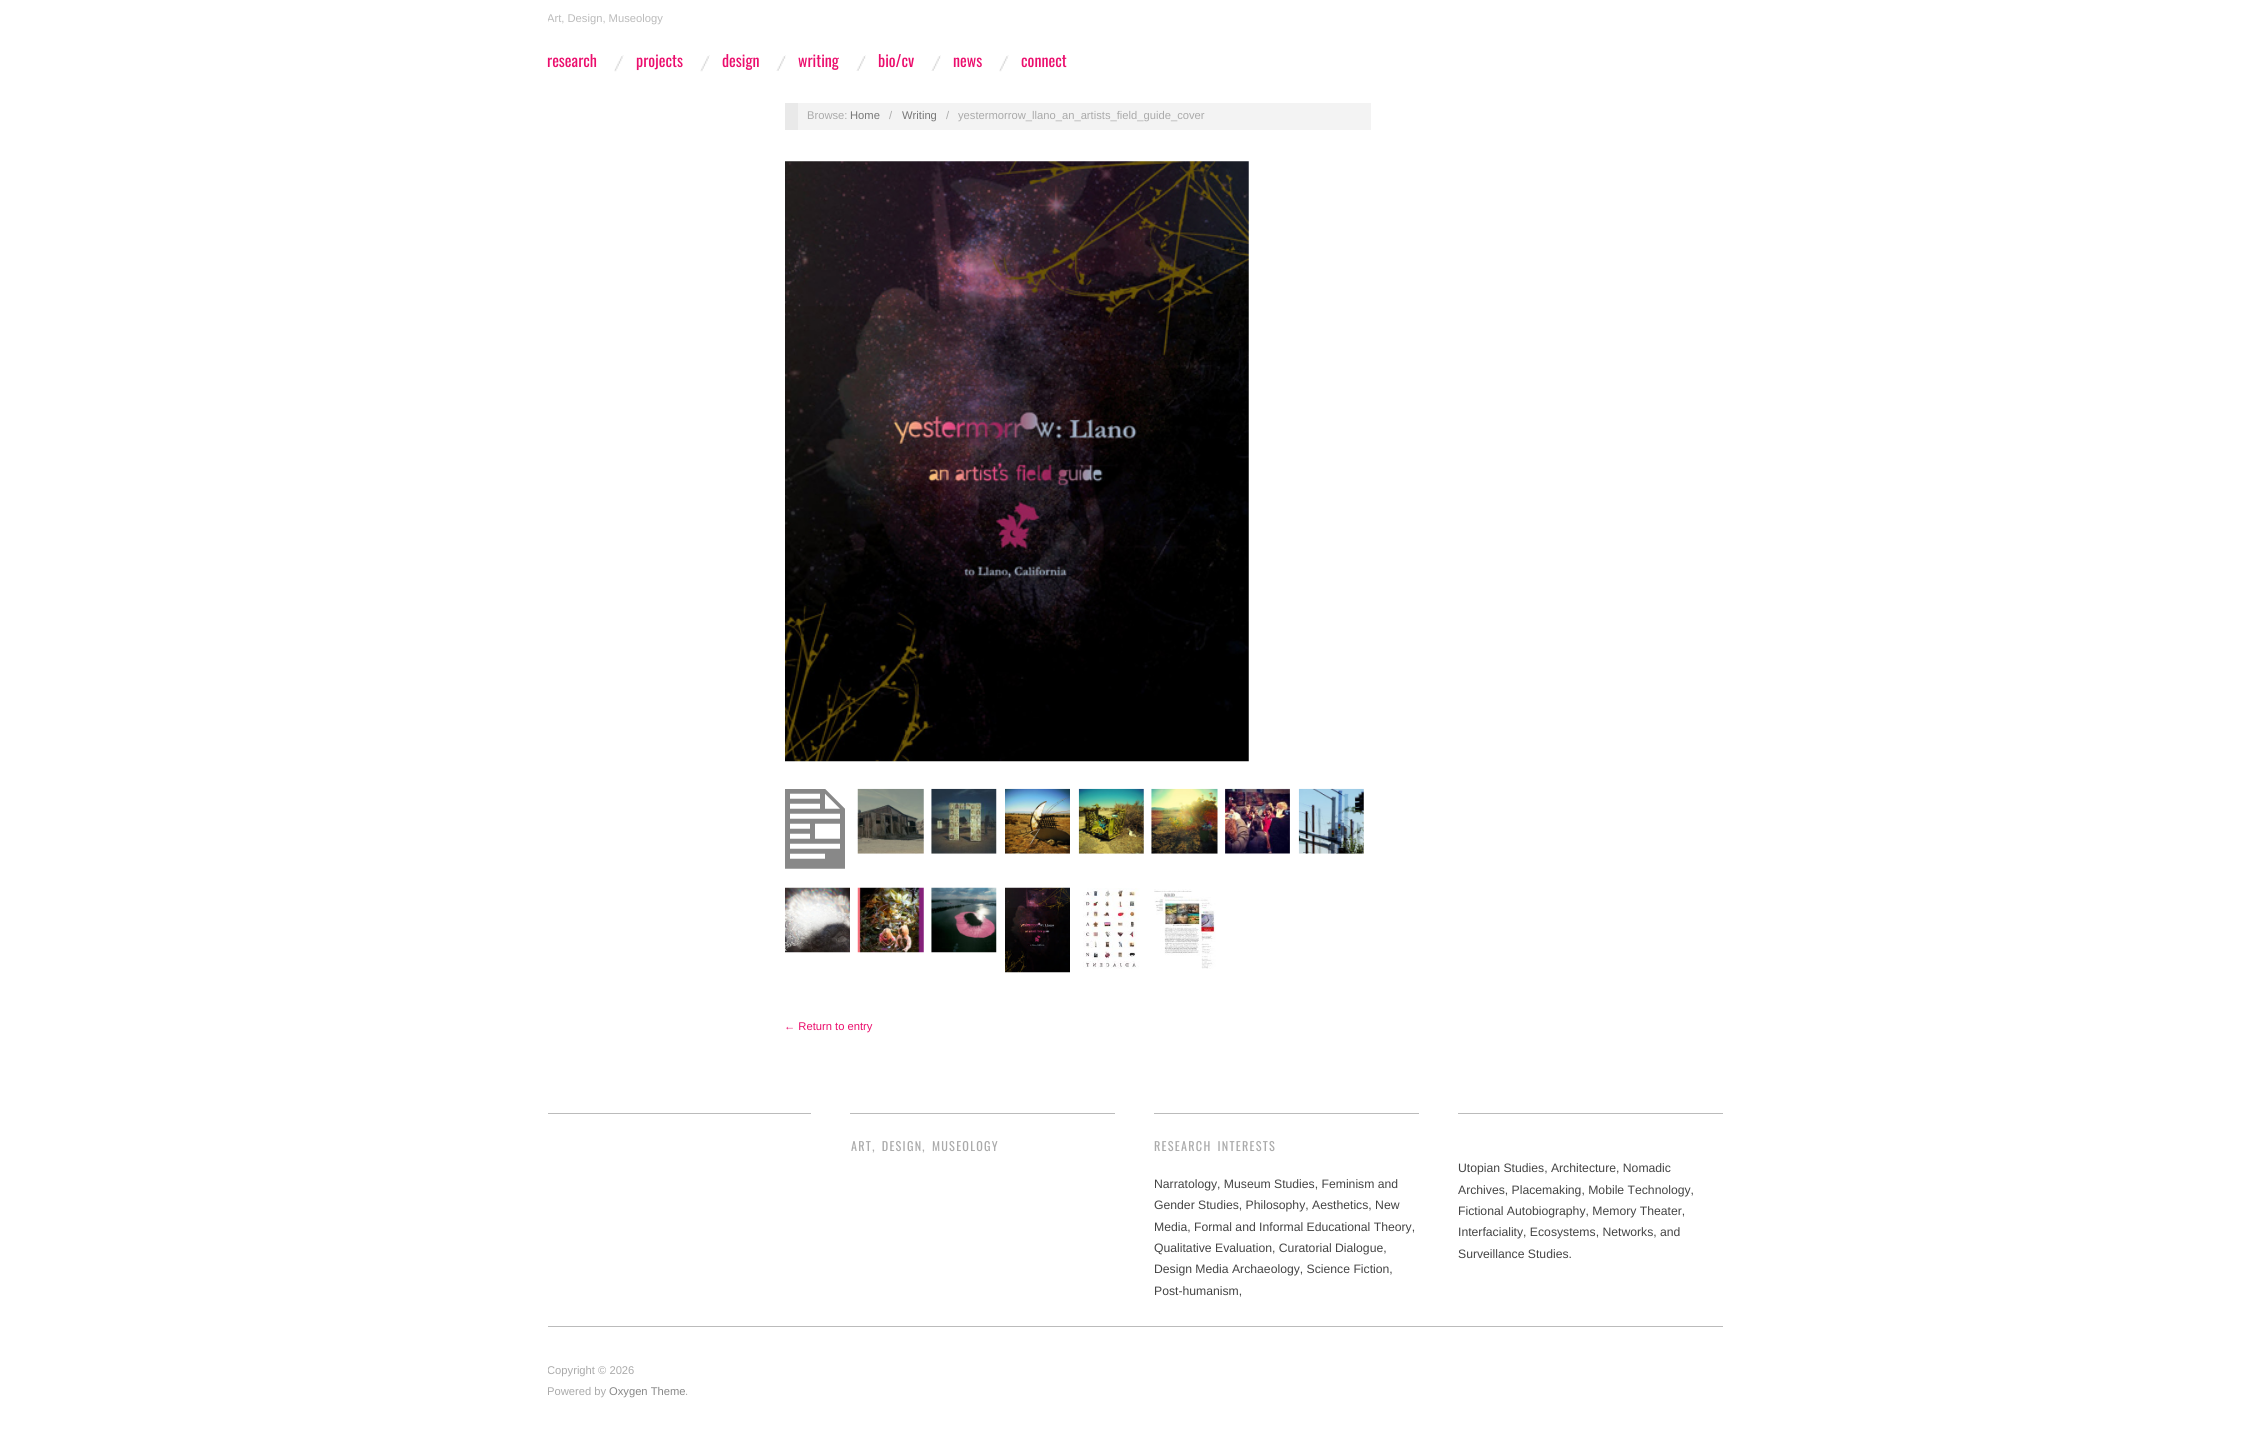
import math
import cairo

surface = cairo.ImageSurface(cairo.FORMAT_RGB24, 2268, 1440)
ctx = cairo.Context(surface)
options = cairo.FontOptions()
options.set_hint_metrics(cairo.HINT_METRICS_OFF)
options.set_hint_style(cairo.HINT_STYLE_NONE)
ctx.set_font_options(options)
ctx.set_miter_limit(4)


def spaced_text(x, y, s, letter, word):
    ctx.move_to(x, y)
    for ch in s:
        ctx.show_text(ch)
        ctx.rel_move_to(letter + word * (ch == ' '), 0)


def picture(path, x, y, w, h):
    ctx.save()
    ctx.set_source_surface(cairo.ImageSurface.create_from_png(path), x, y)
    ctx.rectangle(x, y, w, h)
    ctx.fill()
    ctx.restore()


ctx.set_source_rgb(1, 1, 1)
ctx.paint()
ctx.save()
ctx.rectangle(548, 0, 528, 53)
ctx.clip()
ctx.select_font_face("Liberation Sans")
ctx.set_font_size(11.2)
ctx.set_source_rgb(0.733, 0.733, 0.733)
ctx.move_to(547, 22)
ctx.show_text("Art, Design, Museology")
ctx.restore()
ctx.select_font_face("Oswald")
ctx.set_font_size(16)
ctx.set_source_rgb(0.918, 0.055, 0.427)
ctx.move_to(547, 67)
ctx.show_text("research")
picture("img1.png", 614, 55, 10, 17)
ctx.move_to(636, 67)
ctx.show_text("projects")
picture("img2.png", 700, 55, 10, 17)
ctx.move_to(722, 67)
ctx.show_text("design")
picture("img3.png", 776, 55, 10, 16)
ctx.move_to(798, 67)
ctx.show_text("writing")
picture("img3.png", 856, 55, 10, 16)
ctx.move_to(878, 67)
ctx.show_text("bio/cv")
picture("img3.png", 931, 55, 10, 16)
ctx.move_to(953, 67)
ctx.show_text("news")
picture("img4.png", 999, 55, 10, 17)
ctx.move_to(1021, 67)
ctx.show_text("connect")
ctx.set_source_rgb(0.953, 0.953, 0.953)
ctx.rectangle(798, 103, 573, 27)
ctx.fill()
ctx.set_source_rgb(0.914, 0.914, 0.914)
ctx.rectangle(785, 103, 13, 27)
ctx.fill()
ctx.select_font_face("Liberation Sans")
ctx.set_font_size(11.2)
ctx.set_source_rgb(0.667, 0.667, 0.667)
ctx.move_to(807, 119)
ctx.show_text("Browse:")
ctx.set_source_rgb(0.467, 0.467, 0.467)
ctx.move_to(850, 119)
ctx.show_text("Home")
ctx.set_source_rgb(0.667, 0.667, 0.667)
ctx.move_to(889, 119)
ctx.show_text("/")
ctx.set_source_rgb(0.467, 0.467, 0.467)
ctx.move_to(902, 119)
ctx.show_text("Writing")
ctx.set_source_rgb(0.667, 0.667, 0.667)
ctx.move_to(946, 119)
ctx.show_text("/")
ctx.move_to(958, 119)
ctx.show_text("yestermorrow_llano_an_artists_field_guide_cover")
picture("img5.png", 785, 161, 464, 601)
picture("img6.png", 785, 789, 60, 80)
picture("img7.png", 857, 788, 67, 66)
picture("img8.png", 931, 788, 66, 66)
picture("img9.png", 1005, 788, 65, 66)
picture("img10.png", 1078, 788, 66, 66)
picture("img11.png", 1151, 788, 67, 66)
picture("img12.png", 1225, 788, 65, 66)
picture("img13.png", 1298, 788, 66, 66)
picture("img14.png", 785, 887, 65, 66)
picture("img15.png", 857, 887, 67, 66)
picture("img16.png", 931, 887, 66, 66)
picture("img17.png", 1005, 887, 65, 86)
picture("img18.png", 1083, 888, 57, 81)
picture("img19.png", 1154, 889, 62, 80)
ctx.set_source_rgb(0.918, 0.055, 0.427)
ctx.move_to(784, 1030)
ctx.show_text("← Return to entry")
ctx.set_source_rgb(0.733, 0.733, 0.733)
ctx.rectangle(548, 1113, 263, 1)
ctx.fill()
ctx.rectangle(850, 1113, 265, 1)
ctx.fill()
ctx.select_font_face("Oswald")
ctx.set_font_size(12.2)
ctx.set_source_rgb(0.667, 0.667, 0.667)
spaced_text(851, 1151, "ART, DESIGN, MUSEOLOGY", 1.25, 2)
ctx.set_source_rgb(0.733, 0.733, 0.733)
ctx.rectangle(1154, 1113, 265, 1)
ctx.fill()
ctx.set_source_rgb(0.667, 0.667, 0.667)
spaced_text(1154, 1151, "RESEARCH INTERESTS", 1.25, 2)
ctx.select_font_face("Liberation Sans")
ctx.set_source_rgb(0.267, 0.267, 0.267)
ctx.move_to(1154, 1188)
ctx.show_text("Narratology, Museum Studies, Feminism and")
ctx.move_to(1154, 1209)
ctx.show_text("Gender Studies, Philosophy, Aesthetics, New")
ctx.move_to(1154, 1231)
ctx.show_text("Media, Formal and Informal Educational Theory,")
ctx.move_to(1154, 1252)
ctx.show_text("Qualitative Evaluation, Curatorial Dialogue,")
ctx.move_to(1154, 1273)
ctx.show_text("Design Media Archaeology, Science Fiction,")
ctx.move_to(1154, 1295)
ctx.show_text("Post-humanism,")
ctx.set_source_rgb(0.733, 0.733, 0.733)
ctx.rectangle(1458, 1113, 265, 1)
ctx.fill()
ctx.set_source_rgb(0.267, 0.267, 0.267)
ctx.move_to(1458, 1172)
ctx.show_text("Utopian Studies, Architecture, Nomadic")
ctx.move_to(1458, 1194)
ctx.show_text("Archives, Placemaking, Mobile Technology,")
ctx.move_to(1458, 1215)
ctx.show_text("Fictional Autobiography, Memory Theater,")
ctx.move_to(1458, 1236)
ctx.show_text("Interfaciality, Ecosystems, Networks, and")
ctx.move_to(1458, 1258)
ctx.show_text("Surveillance Studies.")
ctx.set_source_rgb(0.733, 0.733, 0.733)
ctx.rectangle(548, 1326, 1175, 1)
ctx.fill()
ctx.save()
ctx.rectangle(548, 1328, 1175, 112)
ctx.clip()
ctx.set_font_size(11.2)
ctx.set_source_rgb(0.667, 0.667, 0.667)
ctx.move_to(547, 1374)
ctx.show_text("Copyright © 2026")
ctx.move_to(547, 1395)
ctx.show_text("Powered by")
ctx.restore()
ctx.set_font_size(11.2)
ctx.set_source_rgb(0.533, 0.533, 0.533)
ctx.move_to(609, 1395)
ctx.show_text("Oxygen Theme")
ctx.set_source_rgb(0.667, 0.667, 0.667)
ctx.move_to(685, 1395)
ctx.show_text(".")
surface.write_to_png("page.png")
